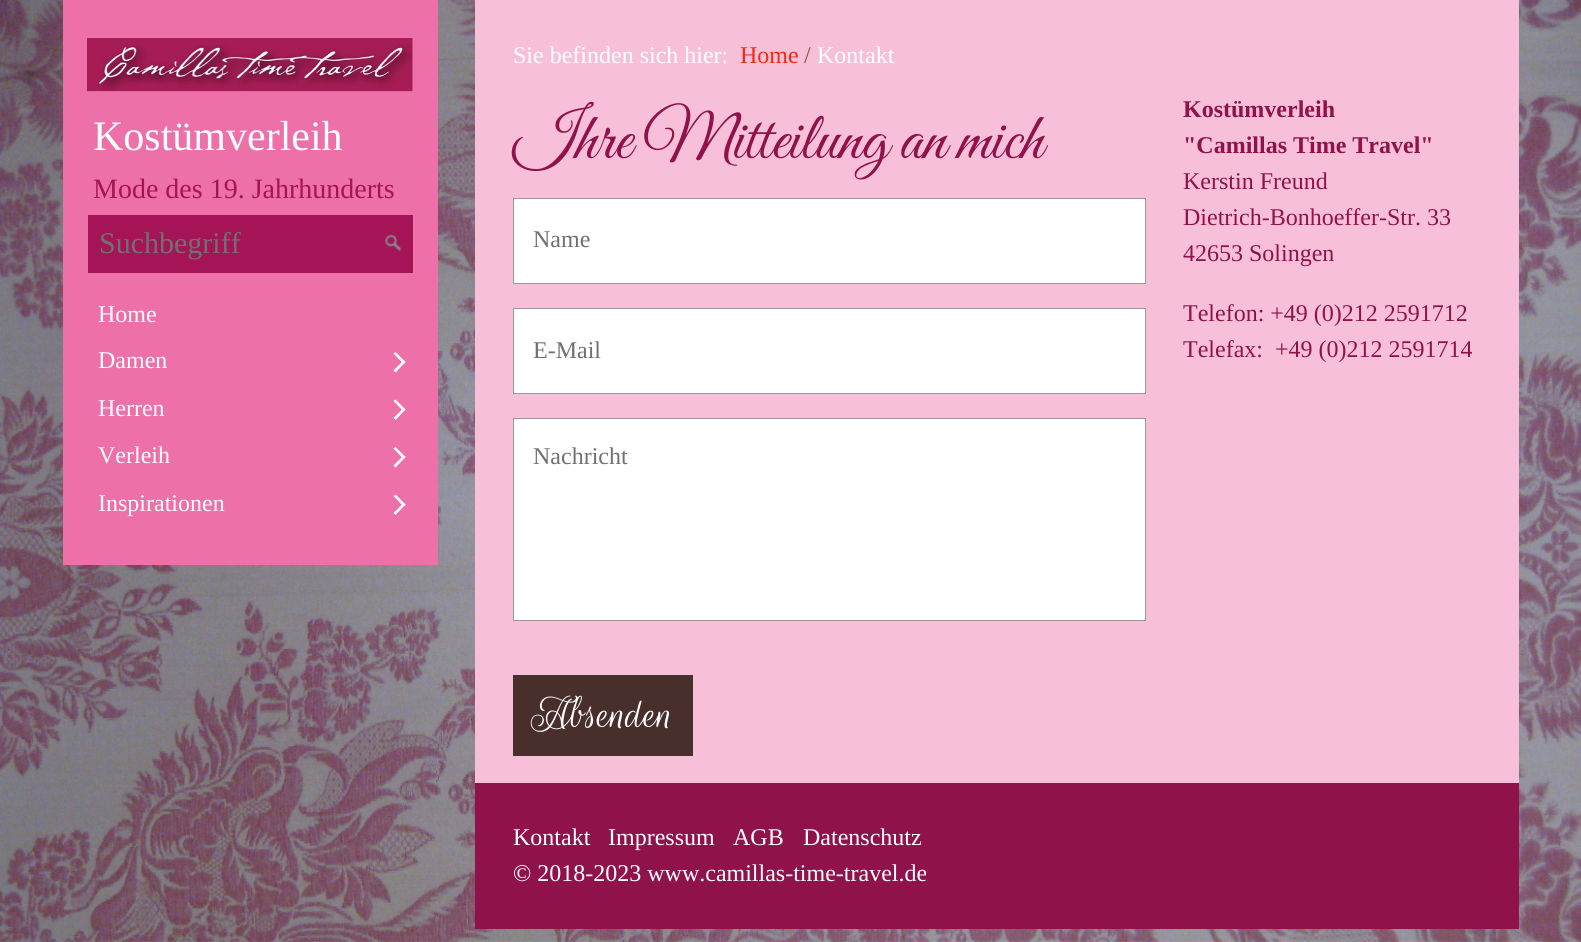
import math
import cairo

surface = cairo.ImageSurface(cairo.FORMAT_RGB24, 1581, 942)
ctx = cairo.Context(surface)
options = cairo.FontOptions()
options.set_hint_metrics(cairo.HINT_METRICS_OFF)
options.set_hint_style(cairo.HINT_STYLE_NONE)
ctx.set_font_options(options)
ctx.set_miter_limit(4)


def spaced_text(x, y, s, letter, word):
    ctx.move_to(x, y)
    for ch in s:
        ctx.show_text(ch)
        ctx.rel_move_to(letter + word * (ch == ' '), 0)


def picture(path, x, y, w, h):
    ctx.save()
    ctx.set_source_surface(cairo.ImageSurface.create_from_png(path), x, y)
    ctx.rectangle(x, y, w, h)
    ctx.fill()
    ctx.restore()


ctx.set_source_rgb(1, 1, 1)
ctx.paint()
picture("img1.png", 0, 0, 1581, 942)
ctx.set_source_rgb(0.929, 0.439, 0.659)
ctx.rectangle(63, 0, 375, 565)
ctx.fill()
picture("img2.png", 87, 38, 326, 54)
ctx.select_font_face("Liberation Serif")
ctx.set_font_size(42)
ctx.set_source_rgb(1, 1, 1)
ctx.move_to(93, 150)
ctx.show_text("Kostümverleih")
ctx.set_font_size(28)
ctx.set_source_rgb(0.647, 0.082, 0.337)
ctx.move_to(93, 198)
ctx.show_text("Mode des 19. Jahrhunderts")
ctx.rectangle(88, 215, 325, 58)
ctx.fill()
ctx.set_font_size(30)
ctx.set_source_rgb(0.439, 0.439, 0.439)
ctx.move_to(99, 253)
ctx.show_text("Suchbegriff")
picture("img3.png", 384, 234, 18, 18)
ctx.set_font_size(24)
ctx.set_source_rgb(1, 1, 1)
ctx.move_to(98, 322)
ctx.show_text("Home")
ctx.move_to(98, 368)
ctx.show_text("Damen")
ctx.new_path()
ctx.move_to(395.5, 352)
ctx.line_to(405.5, 362)
ctx.line_to(403.5, 364)
ctx.line_to(393.5, 353.5)
ctx.close_path()
ctx.fill()
ctx.new_path()
ctx.move_to(403.5, 360.5)
ctx.line_to(405.5, 362)
ctx.line_to(395.5, 372.5)
ctx.line_to(393.5, 370.5)
ctx.close_path()
ctx.fill()
ctx.move_to(98, 416)
ctx.show_text("Herren")
ctx.new_path()
ctx.move_to(395.5, 399.5)
ctx.line_to(405.5, 409.5)
ctx.line_to(403.5, 411.5)
ctx.line_to(393.5, 401)
ctx.close_path()
ctx.fill()
ctx.new_path()
ctx.move_to(403.5, 408)
ctx.line_to(405.5, 409.5)
ctx.line_to(395.5, 420)
ctx.line_to(393.5, 418)
ctx.close_path()
ctx.fill()
ctx.move_to(98, 463)
ctx.show_text("Verleih")
ctx.new_path()
ctx.move_to(395.5, 447)
ctx.line_to(405.5, 457)
ctx.line_to(403.5, 459)
ctx.line_to(393.5, 448.5)
ctx.close_path()
ctx.fill()
ctx.new_path()
ctx.move_to(403.5, 455.5)
ctx.line_to(405.5, 457)
ctx.line_to(395.5, 467.5)
ctx.line_to(393.5, 465.5)
ctx.close_path()
ctx.fill()
ctx.move_to(98, 511)
ctx.show_text("Inspirationen")
ctx.new_path()
ctx.move_to(395.5, 494.5)
ctx.line_to(405.5, 504.5)
ctx.line_to(403.5, 506.5)
ctx.line_to(393.5, 496)
ctx.close_path()
ctx.fill()
ctx.new_path()
ctx.move_to(403.5, 503)
ctx.line_to(405.5, 504.5)
ctx.line_to(395.5, 515)
ctx.line_to(393.5, 513)
ctx.close_path()
ctx.fill()
ctx.set_source_rgb(0.969, 0.753, 0.847)
ctx.rectangle(475, 0, 1044, 783)
ctx.fill()
ctx.set_source_rgb(1, 1, 1)
ctx.move_to(513, 63)
ctx.show_text("Sie befinden sich hier:")
ctx.set_source_rgb(0.937, 0.169, 0.063)
ctx.move_to(740, 63)
ctx.show_text("Home")
ctx.set_source_rgb(0.533, 0.325, 0.286)
ctx.move_to(804, 63)
ctx.show_text("/")
ctx.set_source_rgb(1, 1, 1)
ctx.move_to(817, 63)
ctx.show_text("Kontakt")
ctx.select_font_face("Great Vibes")
ctx.set_font_size(67.25)
ctx.set_source_rgb(0.561, 0.071, 0.29)
spaced_text(513, 158, "Ihre Mitteilung an mich", 0, -0.5)
ctx.set_source_rgb(1, 1, 1)
ctx.rectangle(513.5, 198.5, 632, 85)
ctx.fill_preserve()
ctx.set_source_rgb(0.6, 0.6, 0.6)
ctx.set_line_width(1)
ctx.stroke()
ctx.select_font_face("Liberation Serif")
ctx.set_font_size(24)
ctx.set_source_rgb(0.439, 0.439, 0.439)
ctx.move_to(533, 247)
ctx.show_text("Name")
ctx.set_source_rgb(1, 1, 1)
ctx.rectangle(513.5, 308.5, 632, 85)
ctx.fill_preserve()
ctx.set_source_rgb(0.6, 0.6, 0.6)
ctx.stroke()
ctx.set_source_rgb(0.439, 0.439, 0.439)
ctx.move_to(533, 358)
ctx.show_text("E-Mail")
ctx.set_source_rgb(1, 1, 1)
ctx.rectangle(513.5, 418.5, 632, 202)
ctx.fill_preserve()
ctx.set_source_rgb(0.6, 0.6, 0.6)
ctx.stroke()
ctx.set_source_rgb(0.439, 0.439, 0.439)
ctx.move_to(533, 464)
ctx.show_text("Nachricht")
ctx.set_source_rgb(0.286, 0.184, 0.173)
ctx.rectangle(513, 675, 180, 81)
ctx.fill()
ctx.select_font_face("Rouge Script")
ctx.set_font_size(48)
ctx.set_source_rgb(1, 1, 1)
ctx.move_to(531, 727)
ctx.show_text("Absenden")
ctx.select_font_face("Liberation Serif", cairo.FONT_SLANT_NORMAL, cairo.FONT_WEIGHT_BOLD)
ctx.set_font_size(24)
ctx.set_source_rgb(0.561, 0.071, 0.29)
ctx.move_to(1183, 117)
ctx.show_text("Kostümverleih")
ctx.move_to(1183, 153)
ctx.show_text("\"Camillas Time Travel\"")
ctx.select_font_face("Liberation Serif")
ctx.move_to(1183, 189)
ctx.show_text("Kerstin Freund")
ctx.move_to(1183, 225)
ctx.show_text("Dietrich-Bonhoeffer-Str. 33")
ctx.move_to(1183, 261)
ctx.show_text("42653 Solingen")
ctx.move_to(1183, 321)
ctx.show_text("Telefon: +49 (0)212 2591712")
ctx.move_to(1183, 357)
ctx.show_text("Telefax:  +49 (0)212 2591714")
ctx.rectangle(475, 783, 1044, 146)
ctx.fill()
ctx.set_source_rgb(1, 1, 1)
ctx.move_to(513, 845)
ctx.show_text("Kontakt")
ctx.move_to(608, 845)
ctx.show_text("Impressum")
ctx.move_to(733, 845)
ctx.show_text("AGB")
ctx.move_to(803, 845)
ctx.show_text("Datenschutz")
ctx.move_to(513, 881)
ctx.show_text("© 2018-2023 www.camillas-time-travel.de")
surface.write_to_png("page.png")
